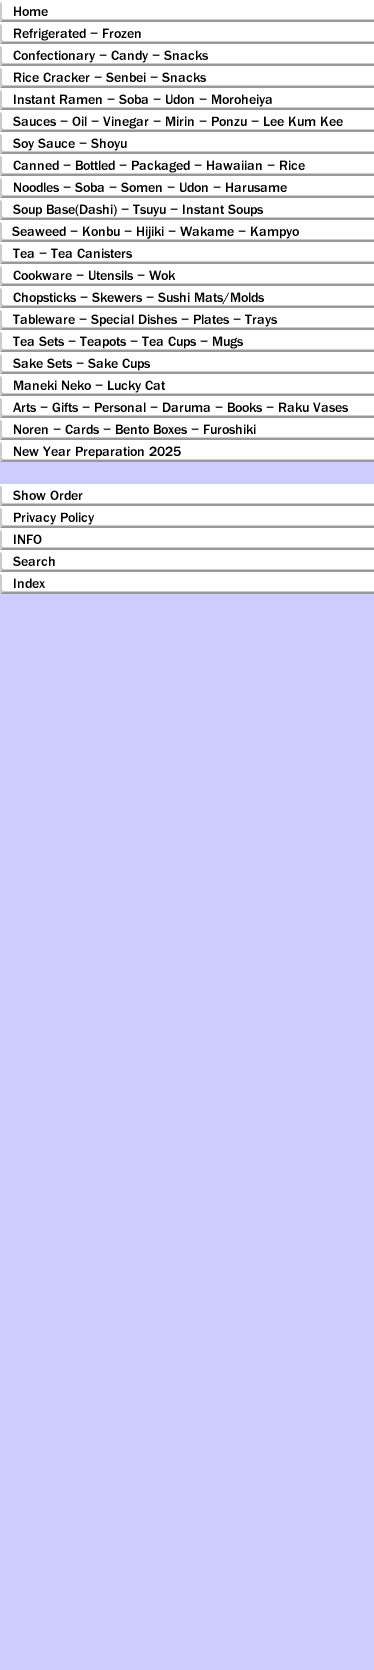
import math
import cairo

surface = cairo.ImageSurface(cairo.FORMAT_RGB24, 374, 1670)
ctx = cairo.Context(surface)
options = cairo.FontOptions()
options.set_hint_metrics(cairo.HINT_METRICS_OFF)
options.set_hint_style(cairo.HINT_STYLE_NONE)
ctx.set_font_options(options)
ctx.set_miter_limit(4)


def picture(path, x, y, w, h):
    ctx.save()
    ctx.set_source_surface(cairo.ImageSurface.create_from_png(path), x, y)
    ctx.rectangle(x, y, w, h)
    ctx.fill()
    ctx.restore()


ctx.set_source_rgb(0.8, 0.8, 0.996)
ctx.paint()
picture("img1.png", 0, 0, 374, 594)
surface.write_to_png("page.png")
